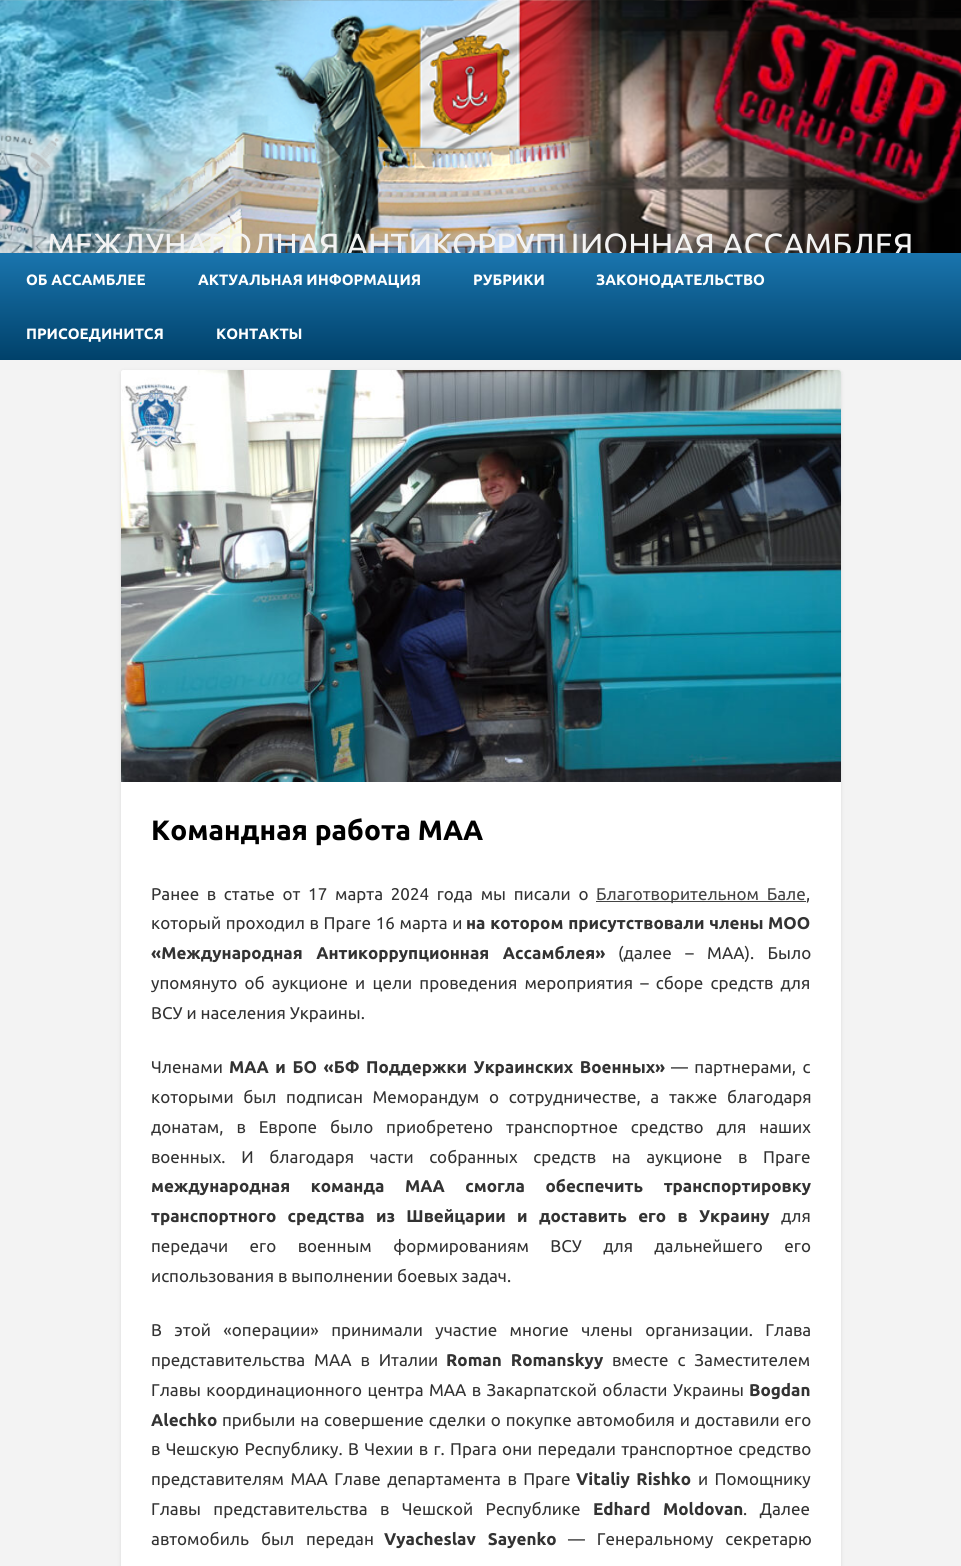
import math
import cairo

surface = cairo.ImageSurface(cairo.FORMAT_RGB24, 961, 1566)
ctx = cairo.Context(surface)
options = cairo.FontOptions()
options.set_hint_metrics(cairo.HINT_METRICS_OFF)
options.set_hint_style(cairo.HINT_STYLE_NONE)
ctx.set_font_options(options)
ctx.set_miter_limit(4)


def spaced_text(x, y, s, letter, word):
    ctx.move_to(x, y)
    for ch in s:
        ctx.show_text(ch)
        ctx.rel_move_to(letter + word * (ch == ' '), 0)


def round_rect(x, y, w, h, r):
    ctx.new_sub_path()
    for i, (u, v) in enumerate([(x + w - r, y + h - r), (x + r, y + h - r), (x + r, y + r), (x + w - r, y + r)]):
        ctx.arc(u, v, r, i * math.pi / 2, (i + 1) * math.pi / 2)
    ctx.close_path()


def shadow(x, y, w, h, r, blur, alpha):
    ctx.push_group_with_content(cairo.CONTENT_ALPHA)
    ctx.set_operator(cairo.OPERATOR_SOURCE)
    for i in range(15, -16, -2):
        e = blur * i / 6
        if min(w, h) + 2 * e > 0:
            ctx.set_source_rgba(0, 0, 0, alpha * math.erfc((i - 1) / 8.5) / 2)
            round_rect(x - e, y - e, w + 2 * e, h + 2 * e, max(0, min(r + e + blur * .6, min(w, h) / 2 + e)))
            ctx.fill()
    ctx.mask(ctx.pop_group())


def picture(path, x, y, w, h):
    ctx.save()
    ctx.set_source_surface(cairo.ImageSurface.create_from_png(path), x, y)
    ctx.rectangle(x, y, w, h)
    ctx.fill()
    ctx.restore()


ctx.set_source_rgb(0.953, 0.953, 0.953)
ctx.paint()
picture("img1.png", 0, 0, 961, 253)
ctx.select_font_face("Ubuntu")
ctx.set_font_size(32)
ctx.set_source_rgb(0.953, 0.953, 0.953)
ctx.move_to(47, 256)
ctx.show_text("МЕЖДУНАРОДНАЯ АНТИКОРРУПЦИОННАЯ АССАМБЛЕЯ")
gradient = cairo.LinearGradient(481, 253, 481, 360)
gradient.add_color_stop_rgba(0, 0.102, 0.459, 0.682, 1)
gradient.add_color_stop_rgba(1, 0, 0.255, 0.416, 1)
ctx.set_source(gradient)
ctx.rectangle(0, 253, 961, 107)
ctx.fill()
ctx.select_font_face("Ubuntu", cairo.FONT_SLANT_NORMAL, cairo.FONT_WEIGHT_BOLD)
ctx.set_font_size(15)
ctx.set_source_rgb(1, 1, 1)
ctx.move_to(26, 285)
ctx.show_text("ОБ АССАМБЛЕЕ")
ctx.move_to(198, 285)
ctx.show_text("АКТУАЛЬНАЯ ИНФОРМАЦИЯ")
ctx.move_to(473, 285)
ctx.show_text("РУБРИКИ")
ctx.move_to(596, 285)
ctx.show_text("ЗАКОНОДАТЕЛЬСТВО")
ctx.move_to(26, 339)
ctx.show_text("ПРИСОЕДИНИТСЯ")
ctx.move_to(216, 339)
ctx.show_text("КОНТАКТЫ")
ctx.set_source_rgb(0, 0, 0)
shadow(121, 371, 720, 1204, 3, 2, 0.1)
ctx.set_source_rgb(1, 1, 1)
round_rect(121, 370, 720, 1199, 3)
ctx.fill()
picture("img2.png", 121, 370, 720, 412)
ctx.set_font_size(28)
ctx.set_source_rgb(0, 0, 0)
ctx.move_to(151, 840)
ctx.show_text("Командная работа МАА")
ctx.select_font_face("Ubuntu")
ctx.set_font_size(17)
ctx.set_source_rgb(0.2, 0.2, 0.2)
spaced_text(151, 900, "Ранее в статье от 17 марта 2024 года мы писали о", 0, 3.75)
ctx.set_source_rgb(0.267, 0.267, 0.267)
ctx.rectangle(596, 901, 210, 1)
ctx.fill()
spaced_text(596, 900, "Благотворительном Бале", 0, 3.75)
ctx.set_source_rgb(0.2, 0.2, 0.2)
ctx.move_to(806, 900)
ctx.show_text(",")
spaced_text(151, 929, "который проходил в Праге 16 марта и", 0, 0.75)
ctx.select_font_face("Ubuntu", cairo.FONT_SLANT_NORMAL, cairo.FONT_WEIGHT_BOLD)
spaced_text(466, 929, "на котором присутствовали члены", 0, 0.75)
ctx.move_to(768, 929)
ctx.show_text("МОО")
spaced_text(151, 959, "«Международная Антикоррупционная Ассамблея»", 0, 9.5)
ctx.select_font_face("Ubuntu")
spaced_text(618, 959, "(далее – МАА). Было", 0, 9.5)
spaced_text(151, 989, "упомянуто об аукционе и цели проведения мероприятия – сборе средств для", 0, 3.25)
ctx.move_to(151, 1019)
ctx.show_text("ВСУ и населения Украины.")
ctx.move_to(151, 1073)
ctx.show_text("Членами")
ctx.select_font_face("Ubuntu", cairo.FONT_SLANT_NORMAL, cairo.FONT_WEIGHT_BOLD)
spaced_text(229, 1073, "МАА и БО «БФ Поддержки Украинских Военных»", 0, 2.5)
ctx.select_font_face("Ubuntu")
spaced_text(671, 1073, "— партнерами, с", 0, 2.5)
spaced_text(151, 1103, "которыми был подписан Меморандум о сотрудничестве, а также благодаря", 0, 5.75)
spaced_text(151, 1133, "донатам, в Европе было приобретено транспортное средство для наших", 0, 9)
spaced_text(151, 1163, "военных. И благодаря части собранных средств на аукционе в Праге", 0, 11.75)
ctx.select_font_face("Ubuntu", cairo.FONT_SLANT_NORMAL, cairo.FONT_WEIGHT_BOLD)
spaced_text(151, 1192, "международная команда МАА смогла обеспечить транспортировку", 0, 16.5)
spaced_text(151, 1222, "транспортного средства из Швейцарии и доставить его в Украину", 0, 7.25)
ctx.select_font_face("Ubuntu")
ctx.move_to(781, 1222)
ctx.show_text("для")
spaced_text(151, 1252, "передачи его военным формированиям ВСУ для дальнейшего его", 0, 17.5)
ctx.move_to(151, 1282)
ctx.show_text("использования в выполнении боевых задач.")
spaced_text(151, 1336, "В этой «операции» принимали участие многие члены организации. Глава", 0, 8.5)
spaced_text(151, 1366, "представительства МАА в Италии", 0, 5)
ctx.select_font_face("Ubuntu", cairo.FONT_SLANT_NORMAL, cairo.FONT_WEIGHT_BOLD)
spaced_text(446, 1366, "Roman Romanskyy", 0, 5)
ctx.select_font_face("Ubuntu")
spaced_text(612, 1366, "вместе с Заместителем", 0, 5)
spaced_text(151, 1396, "Главы координационного центра МАА в Закарпатской области Украины", 0, 1.5)
ctx.select_font_face("Ubuntu", cairo.FONT_SLANT_NORMAL, cairo.FONT_WEIGHT_BOLD)
ctx.move_to(749, 1396)
ctx.show_text("Bogdan")
ctx.move_to(151, 1426)
ctx.show_text("Alechko")
ctx.select_font_face("Ubuntu")
spaced_text(222, 1426, "прибыли на совершение сделки о покупке автомобиля и доставили его", 0, 1)
spaced_text(151, 1455, "в Чешскую Республику. В Чехии в г. Прага они передали транспортное средство", 0, 1.4)
spaced_text(151, 1485, "представителям МАА Главе департамента в Праге", 0, 2.5)
ctx.select_font_face("Ubuntu", cairo.FONT_SLANT_NORMAL, cairo.FONT_WEIGHT_BOLD)
spaced_text(576, 1485, "Vitaliy Rishko", 0, 2.5)
ctx.select_font_face("Ubuntu")
spaced_text(698, 1485, "и Помощнику", 0, 2.5)
spaced_text(151, 1515, "Главы представительства в Чешской Республике", 0, 8.5)
ctx.select_font_face("Ubuntu", cairo.FONT_SLANT_NORMAL, cairo.FONT_WEIGHT_BOLD)
spaced_text(593, 1515, "Edhard Moldovan", 0, 8.5)
ctx.select_font_face("Ubuntu")
spaced_text(743, 1515, ". Далее", 0, 8.5)
spaced_text(151, 1545, "автомобиль был передан", 0, 8)
ctx.select_font_face("Ubuntu", cairo.FONT_SLANT_NORMAL, cairo.FONT_WEIGHT_BOLD)
spaced_text(384, 1545, "Vyacheslav Sayenko", 0, 8)
ctx.select_font_face("Ubuntu")
spaced_text(568, 1545, "— Генеральному секретарю", 0, 8)
surface.write_to_png("page.png")
